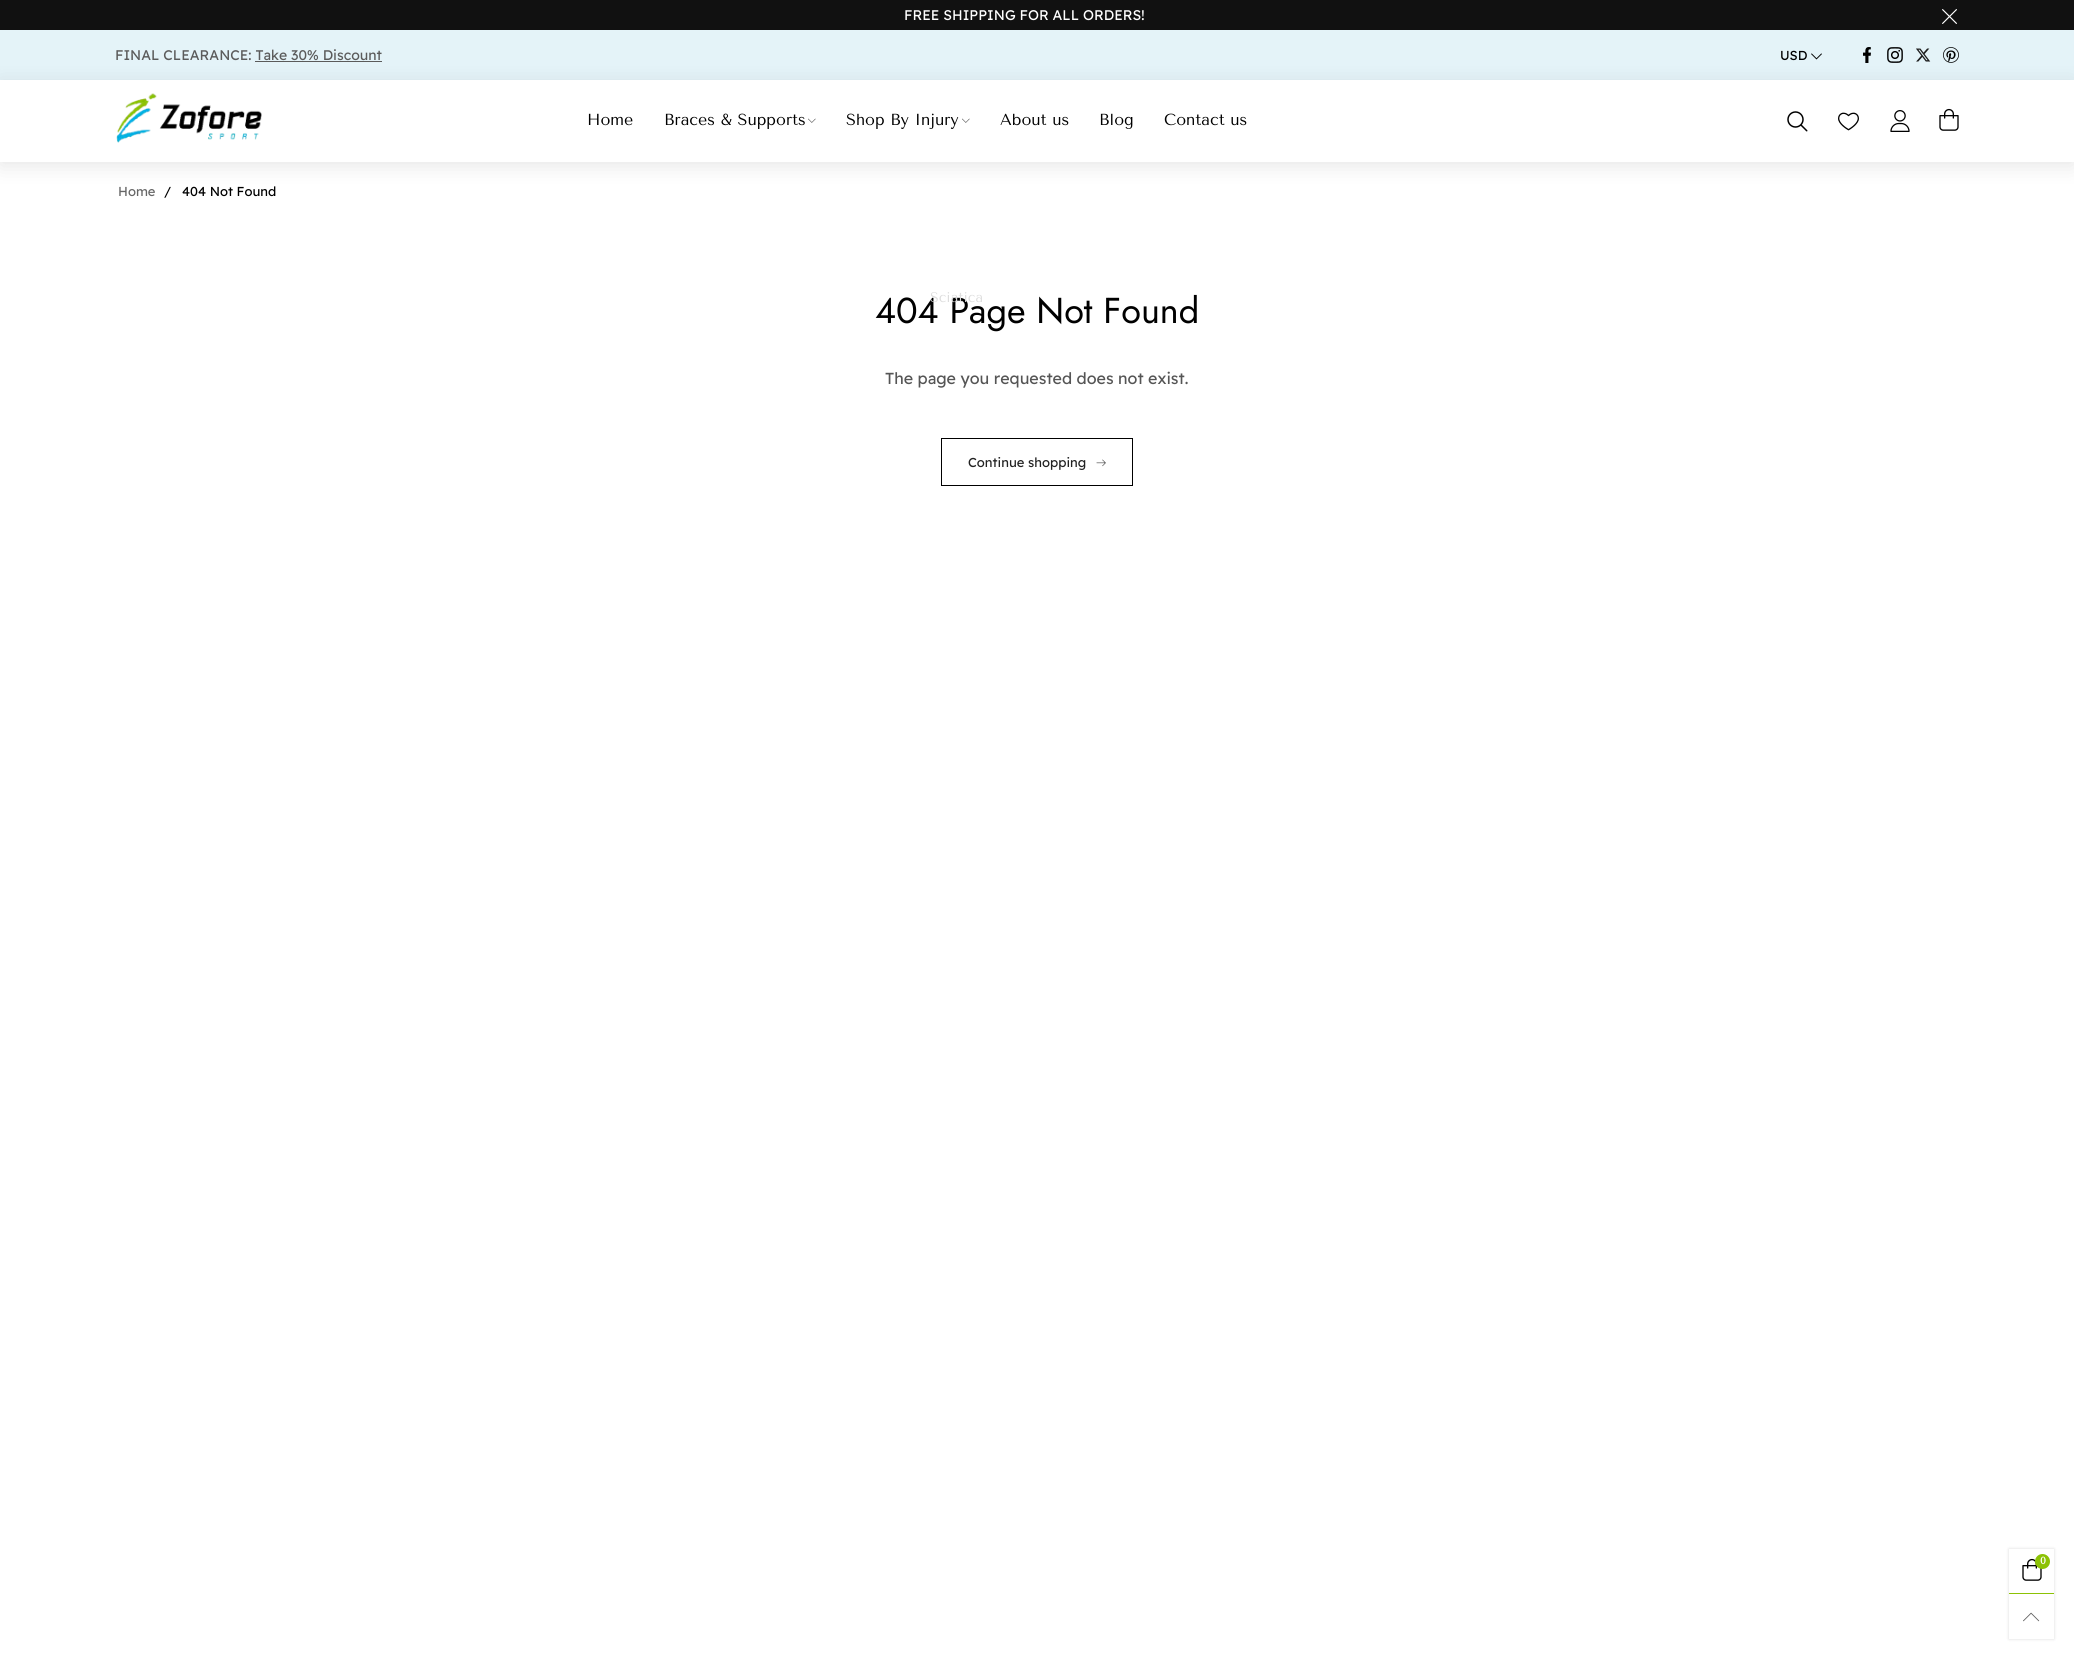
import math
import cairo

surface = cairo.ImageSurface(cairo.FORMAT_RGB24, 2074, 1679)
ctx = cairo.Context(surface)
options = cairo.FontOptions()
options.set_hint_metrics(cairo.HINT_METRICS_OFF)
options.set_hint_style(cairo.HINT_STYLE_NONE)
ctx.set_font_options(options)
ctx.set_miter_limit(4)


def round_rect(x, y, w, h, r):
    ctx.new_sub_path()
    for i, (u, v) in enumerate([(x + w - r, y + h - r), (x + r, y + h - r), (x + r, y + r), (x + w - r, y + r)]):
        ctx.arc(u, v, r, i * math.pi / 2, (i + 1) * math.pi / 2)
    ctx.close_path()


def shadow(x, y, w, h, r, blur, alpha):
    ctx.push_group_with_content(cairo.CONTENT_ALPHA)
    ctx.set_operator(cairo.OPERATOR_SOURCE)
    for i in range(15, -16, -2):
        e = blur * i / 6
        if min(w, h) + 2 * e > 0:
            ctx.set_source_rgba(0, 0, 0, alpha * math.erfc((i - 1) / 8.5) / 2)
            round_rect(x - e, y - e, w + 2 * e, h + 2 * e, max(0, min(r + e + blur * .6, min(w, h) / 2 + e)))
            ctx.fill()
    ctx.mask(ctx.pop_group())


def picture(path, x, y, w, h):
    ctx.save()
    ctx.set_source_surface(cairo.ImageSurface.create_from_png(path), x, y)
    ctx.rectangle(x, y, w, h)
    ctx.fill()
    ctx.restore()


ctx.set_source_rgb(1, 1, 1)
ctx.paint()
ctx.set_source_rgb(0.067, 0.067, 0.067)
ctx.rectangle(0, 0, 2074, 30)
ctx.fill()
ctx.select_font_face("Readex Pro")
ctx.set_font_size(14)
ctx.set_source_rgb(1, 1, 1)
ctx.move_to(904, 20)
ctx.show_text("FREE SHIPPING FOR ALL ORDERS!")
picture("img1.png", 1942, 9, 15, 15)
ctx.set_source_rgb(0.894, 0.953, 0.969)
ctx.rectangle(0, 30, 2074, 50)
ctx.fill()
ctx.save()
ctx.set_fill_rule(cairo.FILL_RULE_EVEN_ODD)
ctx.new_path()
ctx.move_to(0, 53)
ctx.line_to(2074, 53)
ctx.line_to(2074, 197)
ctx.line_to(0, 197)
ctx.close_path()
ctx.move_to(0, 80)
ctx.line_to(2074, 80)
ctx.line_to(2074, 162)
ctx.line_to(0, 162)
ctx.close_path()
ctx.clip()
ctx.set_source_rgb(0, 0, 0)
shadow(0, 84, 2074, 82, 0, 10, 0.1)
ctx.restore()
ctx.set_source_rgb(0.357, 0.357, 0.357)
ctx.move_to(115, 60)
ctx.show_text("FINAL CLEARANCE: Take 30% Discount")
ctx.rectangle(255, 61, 127, 1)
ctx.fill()
ctx.set_font_size(13)
ctx.set_source_rgb(0, 0, 0)
ctx.move_to(1780, 60)
ctx.show_text("USD")
picture("img2.png", 1811, 53, 11, 7)
picture("img3.png", 1863, 47, 8, 16)
picture("img4.png", 1887, 47, 16, 16)
picture("img5.png", 1916, 48, 15, 14)
picture("img6.png", 1943, 47, 16, 16)
picture("img7.png", 116, 93, 146, 50)
ctx.select_font_face("Tenor Sans")
ctx.set_font_size(16)
ctx.move_to(587, 125)
ctx.show_text("Home")
ctx.move_to(664, 125)
ctx.show_text("Braces & Supports")
picture("img8.png", 808, 118, 8, 5)
ctx.move_to(846, 125)
ctx.show_text("Shop By Injury")
picture("img8.png", 962, 118, 8, 5)
ctx.select_font_face("Jost")
ctx.set_font_size(36)
ctx.move_to(875, 323)
ctx.show_text("404 Page Not Found")
ctx.select_font_face("Tenor Sans")
ctx.set_font_size(14)
ctx.set_source_rgb(0.867, 0.867, 0.867)
ctx.move_to(930, 302)
ctx.show_text("Sciatica")
ctx.set_font_size(16)
ctx.set_source_rgb(0, 0, 0)
ctx.move_to(1000, 125)
ctx.show_text("About us")
ctx.move_to(1099, 125)
ctx.show_text("Blog")
ctx.move_to(1164, 125)
ctx.show_text("Contact us")
picture("img9.png", 1787, 111, 21, 21)
picture("img10.png", 1838, 112, 21, 19)
picture("img11.png", 1890, 110, 20, 22)
picture("img12.png", 1939, 108, 20, 23)
ctx.select_font_face("Readex Pro")
ctx.set_font_size(13)
ctx.set_source_rgb(0.4, 0.4, 0.4)
ctx.move_to(118, 196)
ctx.show_text("Home")
ctx.set_source_rgb(0, 0, 0)
ctx.move_to(164, 196)
ctx.show_text("/")
ctx.move_to(182, 196)
ctx.show_text("404 Not Found")
ctx.set_font_size(16)
ctx.set_source_rgb(0.333, 0.333, 0.333)
ctx.move_to(885, 384)
ctx.show_text("The page you requested does not exist.")
ctx.rectangle(941.5, 438.5, 191, 47)
ctx.set_source_rgb(0, 0, 0)
ctx.set_line_width(1)
ctx.stroke()
ctx.set_font_size(13)
ctx.set_source_rgb(0.133, 0.133, 0.133)
ctx.move_to(968, 467)
ctx.show_text("Continue shopping")
picture("img13.png", 1096, 459, 10, 8)
ctx.save()
ctx.set_fill_rule(cairo.FILL_RULE_EVEN_ODD)
ctx.new_path()
ctx.move_to(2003, 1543)
ctx.line_to(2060, 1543)
ctx.line_to(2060, 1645)
ctx.line_to(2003, 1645)
ctx.close_path()
ctx.move_to(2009, 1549)
ctx.line_to(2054, 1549)
ctx.line_to(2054, 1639)
ctx.line_to(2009, 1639)
ctx.close_path()
ctx.clip()
ctx.set_source_rgb(0, 0, 0)
shadow(2009, 1549, 45, 90, 0, 1.5, 0.15)
ctx.restore()
ctx.set_source_rgb(0.549, 0.761, 0.02)
ctx.rectangle(2009, 1593, 45, 1)
ctx.fill()
picture("img12.png", 2022, 1558, 20, 23)
ctx.arc(2042.5, 1561.5, 7.5, 0, 2 * math.pi)
ctx.fill()
ctx.select_font_face("Tenor Sans", cairo.FONT_SLANT_NORMAL, cairo.FONT_WEIGHT_BOLD)
ctx.set_font_size(10)
ctx.set_source_rgb(1, 1, 1)
ctx.move_to(2040, 1564)
ctx.show_text("0")
picture("img14.png", 2023, 1612, 17, 10)
surface.write_to_png("page.png")
